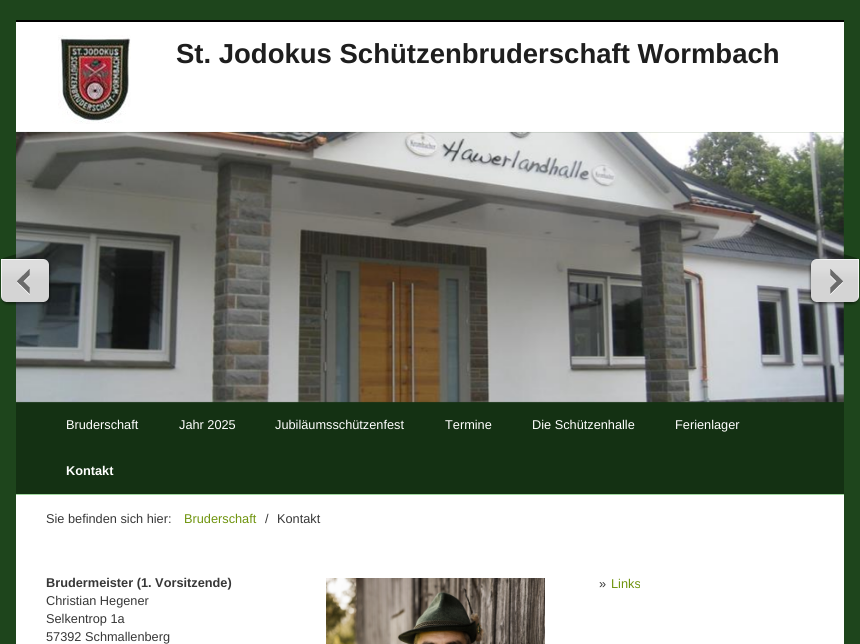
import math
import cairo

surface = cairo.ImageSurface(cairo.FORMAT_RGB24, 860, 644)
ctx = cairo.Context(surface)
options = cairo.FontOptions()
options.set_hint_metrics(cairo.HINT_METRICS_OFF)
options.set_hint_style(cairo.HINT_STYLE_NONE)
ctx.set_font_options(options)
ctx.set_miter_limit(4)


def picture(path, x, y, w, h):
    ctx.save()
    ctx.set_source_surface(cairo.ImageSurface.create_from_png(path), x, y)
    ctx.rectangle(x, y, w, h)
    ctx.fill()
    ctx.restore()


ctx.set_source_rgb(0.118, 0.271, 0.11)
ctx.paint()
ctx.set_source_rgb(0, 0, 0)
ctx.rectangle(16, 20, 828, 2)
ctx.fill()
ctx.set_source_rgb(1, 1, 1)
ctx.rectangle(16, 22, 828, 110)
ctx.fill()
picture("img1.png", 58, 35, 73, 89)
ctx.select_font_face("Liberation Sans", cairo.FONT_SLANT_NORMAL, cairo.FONT_WEIGHT_BOLD)
ctx.set_font_size(27.5)
ctx.set_source_rgb(0.118, 0.118, 0.118)
ctx.move_to(176, 63)
ctx.show_text("St. Jodokus Schützenbruderschaft Wormbach")
ctx.set_source_rgb(0.082, 0.192, 0.078)
ctx.rectangle(16, 402, 828, 92)
ctx.fill()
picture("img2.png", 16, 131, 828, 272)
picture("img3.png", 1, 254, 51, 52)
picture("img4.png", 808, 254, 51, 52)
ctx.set_source_rgb(0.631, 0.847, 0.624)
ctx.rectangle(16, 494, 828, 1)
ctx.fill()
ctx.select_font_face("Liberation Sans")
ctx.set_font_size(12.75)
ctx.set_source_rgb(1, 1, 1)
ctx.move_to(66, 429)
ctx.show_text("Bruderschaft")
ctx.move_to(179, 429)
ctx.show_text("Jahr 2025")
ctx.move_to(275, 429)
ctx.show_text("Jubiläumsschützenfest")
ctx.move_to(445, 429)
ctx.show_text("Termine")
ctx.move_to(532, 429)
ctx.show_text("Die Schützenhalle")
ctx.move_to(675, 429)
ctx.show_text("Ferienlager")
ctx.select_font_face("Liberation Sans", cairo.FONT_SLANT_NORMAL, cairo.FONT_WEIGHT_BOLD)
ctx.move_to(66, 475)
ctx.show_text("Kontakt")
ctx.rectangle(16, 495, 828, 149)
ctx.fill()
ctx.select_font_face("Liberation Sans")
ctx.set_source_rgb(0.216, 0.216, 0.216)
ctx.move_to(46, 523)
ctx.show_text("Sie befinden sich hier:")
ctx.set_source_rgb(0.435, 0.58, 0.055)
ctx.move_to(184, 523)
ctx.show_text("Bruderschaft")
ctx.set_source_rgb(0.216, 0.216, 0.216)
ctx.move_to(265, 523)
ctx.show_text("/")
ctx.move_to(277, 523)
ctx.show_text("Kontakt")
ctx.select_font_face("Liberation Sans", cairo.FONT_SLANT_NORMAL, cairo.FONT_WEIGHT_BOLD)
ctx.move_to(46, 587)
ctx.show_text("Brudermeister (1. Vorsitzende)")
picture("img5.png", 326, 578, 219, 66)
ctx.select_font_face("Liberation Sans")
ctx.move_to(46, 605)
ctx.show_text("Christian Hegener")
ctx.move_to(46, 623)
ctx.show_text("Selkentrop 1a")
ctx.move_to(46, 641)
ctx.show_text("57392 Schmallenberg")
ctx.move_to(599, 588)
ctx.show_text("»")
ctx.set_source_rgb(0.435, 0.58, 0.055)
ctx.move_to(611, 588)
ctx.show_text("Links")
surface.write_to_png("page.png")
